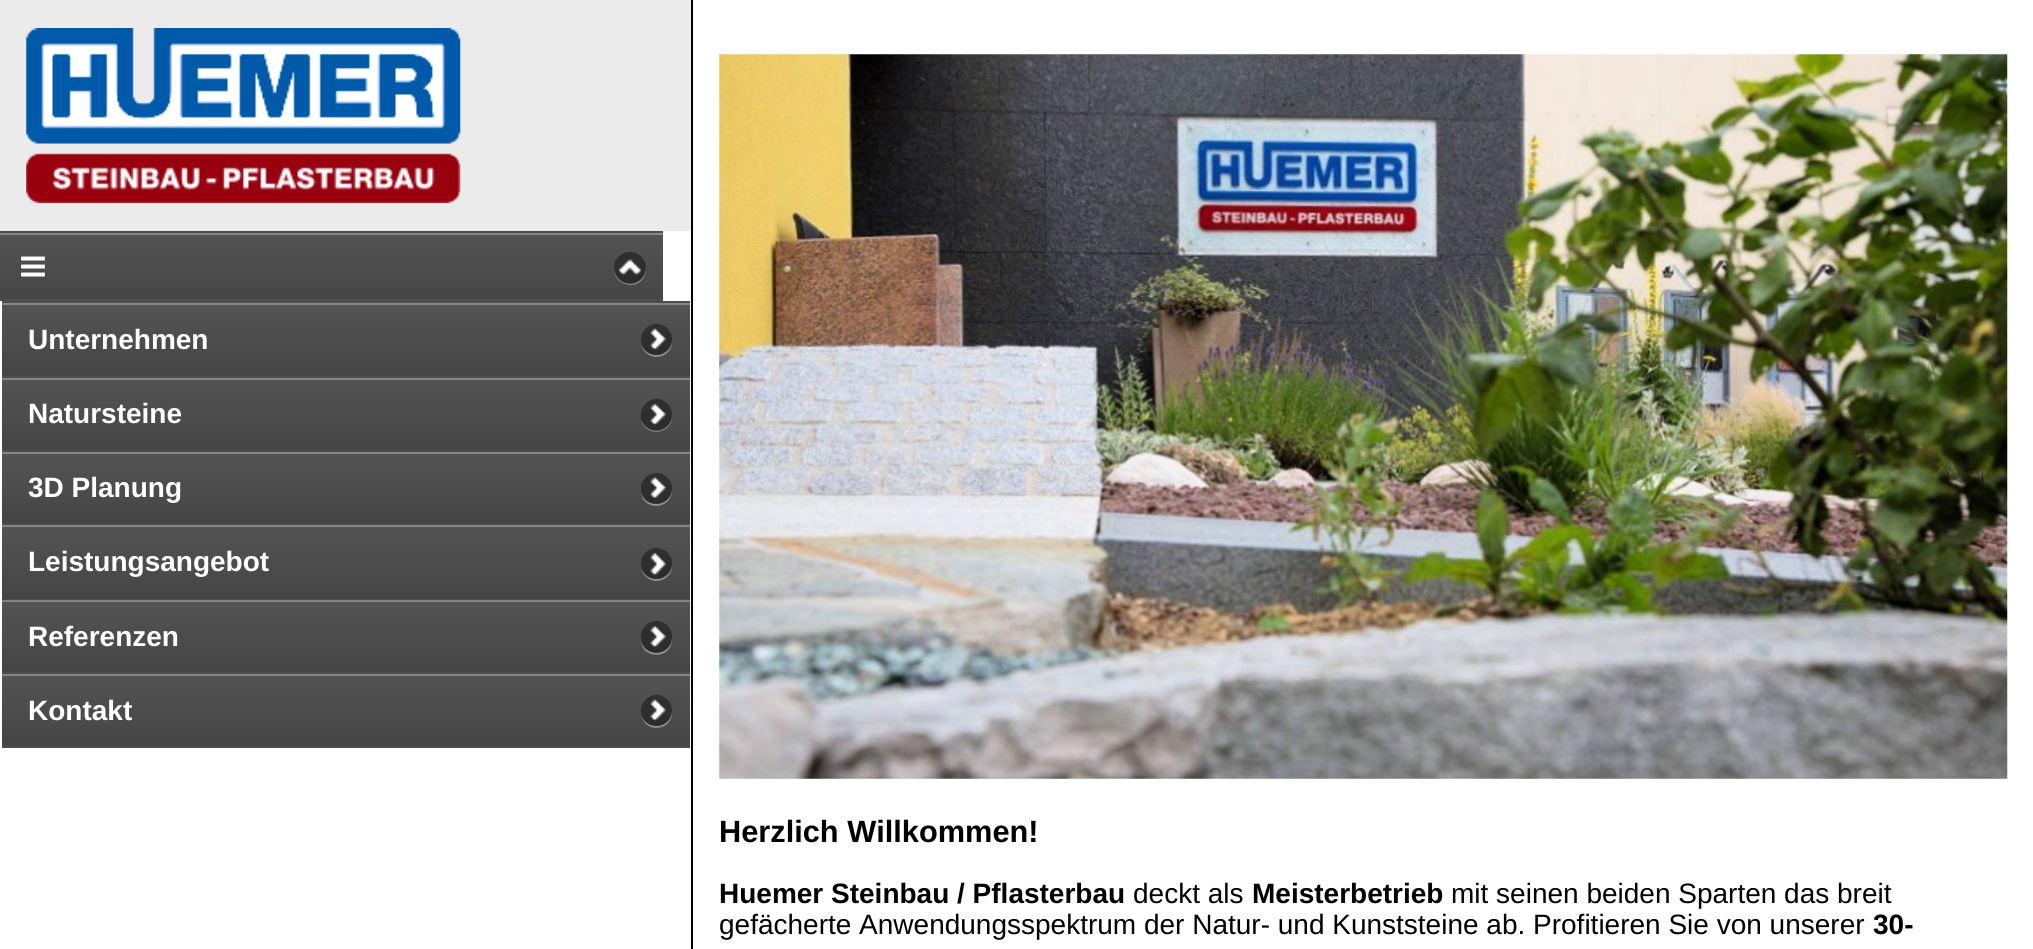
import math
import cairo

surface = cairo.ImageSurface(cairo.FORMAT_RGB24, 2033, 949)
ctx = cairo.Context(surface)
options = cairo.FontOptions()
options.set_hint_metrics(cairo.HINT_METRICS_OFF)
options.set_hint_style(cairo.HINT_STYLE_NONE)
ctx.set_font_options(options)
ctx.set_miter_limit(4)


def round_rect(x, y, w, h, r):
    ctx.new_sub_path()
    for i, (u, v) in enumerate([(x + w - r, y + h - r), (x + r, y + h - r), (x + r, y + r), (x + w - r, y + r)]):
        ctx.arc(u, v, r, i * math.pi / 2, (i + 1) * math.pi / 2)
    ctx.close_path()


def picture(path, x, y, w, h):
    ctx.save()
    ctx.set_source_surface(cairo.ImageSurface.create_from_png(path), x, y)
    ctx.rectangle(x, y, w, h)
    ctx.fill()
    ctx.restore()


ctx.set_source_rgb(1, 1, 1)
ctx.paint()
ctx.set_source_rgb(0.918, 0.918, 0.918)
ctx.rectangle(0, 0, 691, 231)
ctx.fill()
picture("img1.png", 26, 28, 435, 175)
gradient = cairo.LinearGradient(332, 233, 332, 299)
gradient.add_color_stop_rgba(0, 0.329, 0.329, 0.329, 1)
gradient.add_color_stop_rgba(1, 0.271, 0.271, 0.271, 1)
ctx.set_source(gradient)
ctx.rectangle(0, 235, 663, 64)
ctx.fill()
ctx.set_source_rgb(0.302, 0.302, 0.302)
ctx.rectangle(0, 231, 663, 2)
ctx.fill()
ctx.rectangle(0, 299, 663, 2)
ctx.fill()
ctx.set_source_rgb(0.529, 0.529, 0.529)
ctx.rectangle(0, 233, 663, 2)
ctx.fill()
picture("img2.png", 21, 256, 24, 21)
ctx.set_source_rgba(1, 1, 1, 0.4)
ctx.new_path()
ctx.move_to(614.5, 266.5)
ctx.curve_to(611, 283, 634, 292, 643.5, 278)
ctx.curve_to(645.5, 274.5, 646.5, 270.5, 645.5, 266.5)
ctx.curve_to(647, 282.5, 626, 290, 617, 276.5)
ctx.curve_to(615, 273.5, 614, 270, 614.5, 266.5)
ctx.close_path()
ctx.fill()
ctx.set_source_rgba(0, 0, 0, 0.4)
ctx.arc(630, 268, 16, 0, 2 * math.pi)
ctx.fill()
picture("img3.png", 619, 258, 22, 18)
gradient = cairo.LinearGradient(346, 303, 346, 376)
gradient.add_color_stop_rgba(0, 0.329, 0.329, 0.329, 1)
gradient.add_color_stop_rgba(1, 0.271, 0.271, 0.271, 1)
ctx.set_source(gradient)
ctx.rectangle(2, 305, 688, 71)
ctx.fill()
ctx.set_source_rgb(0.302, 0.302, 0.302)
ctx.rectangle(2, 301, 688, 2)
ctx.fill()
ctx.set_source_rgb(0.529, 0.529, 0.529)
ctx.rectangle(2, 303, 688, 2)
ctx.fill()
ctx.select_font_face("Liberation Sans", cairo.FONT_SLANT_NORMAL, cairo.FONT_WEIGHT_BOLD)
ctx.set_font_size(28)
ctx.set_source_rgb(1, 1, 1)
ctx.move_to(28, 349)
ctx.show_text("Unternehmen")
ctx.set_source_rgb(0.573, 0.573, 0.573)
ctx.new_path()
ctx.move_to(641.5, 344.5)
ctx.curve_to(645, 363, 673, 360, 672, 340.5)
ctx.curve_to(671, 357.5, 646.5, 360.5, 641.5, 344.5)
ctx.close_path()
ctx.fill()
ctx.set_source_rgba(0, 0, 0, 0.4)
ctx.arc(656.5, 339.5, 15.5, 0, 2 * math.pi)
ctx.fill()
picture("img4.png", 650, 328, 16, 23)
gradient = cairo.LinearGradient(346, 378, 346, 450)
gradient.add_color_stop_rgba(0, 0.329, 0.329, 0.329, 1)
gradient.add_color_stop_rgba(1, 0.271, 0.271, 0.271, 1)
ctx.set_source(gradient)
ctx.rectangle(2, 380, 688, 70)
ctx.fill()
ctx.set_source_rgb(0.302, 0.302, 0.302)
ctx.rectangle(2, 376, 688, 2)
ctx.fill()
ctx.set_source_rgb(0.529, 0.529, 0.529)
ctx.rectangle(2, 378, 688, 2)
ctx.fill()
ctx.set_source_rgb(1, 1, 1)
ctx.move_to(28, 423)
ctx.show_text("Natursteine")
ctx.set_source_rgb(0.573, 0.573, 0.573)
ctx.new_path()
ctx.move_to(641.5, 420)
ctx.curve_to(645.5, 438, 673, 434.5, 672, 415.5)
ctx.curve_to(671, 432.5, 647, 436, 641.5, 420)
ctx.close_path()
ctx.fill()
ctx.set_source_rgba(0, 0, 0, 0.4)
round_rect(641, 399, 31, 32, 15.5)
ctx.fill()
picture("img5.png", 650, 403, 16, 23)
gradient = cairo.LinearGradient(346, 452, 346, 523)
gradient.add_color_stop_rgba(0, 0.329, 0.329, 0.329, 1)
gradient.add_color_stop_rgba(1, 0.271, 0.271, 0.271, 1)
ctx.set_source(gradient)
ctx.rectangle(2, 454, 688, 69)
ctx.fill()
ctx.set_source_rgb(0.302, 0.302, 0.302)
ctx.rectangle(2, 450, 688, 2)
ctx.fill()
ctx.set_source_rgb(0.529, 0.529, 0.529)
ctx.rectangle(2, 452, 688, 2)
ctx.fill()
ctx.set_source_rgb(1, 1, 1)
ctx.move_to(28, 497)
ctx.show_text("3D Planung")
ctx.set_source_rgb(0.573, 0.573, 0.573)
ctx.new_path()
ctx.move_to(641, 493)
ctx.curve_to(644, 512, 673, 509.5, 672, 489)
ctx.curve_to(671.5, 506.5, 646, 509.5, 641, 493)
ctx.close_path()
ctx.fill()
ctx.set_source_rgba(0, 0, 0, 0.4)
ctx.arc(656.5, 488.5, 15.5, 0, 2 * math.pi)
ctx.fill()
picture("img6.png", 650, 477, 16, 22)
gradient = cairo.LinearGradient(346, 525, 346, 599)
gradient.add_color_stop_rgba(0, 0.329, 0.329, 0.329, 1)
gradient.add_color_stop_rgba(1, 0.271, 0.271, 0.271, 1)
ctx.set_source(gradient)
ctx.rectangle(2, 527, 688, 72)
ctx.fill()
ctx.set_source_rgb(0.302, 0.302, 0.302)
ctx.rectangle(2, 523, 688, 2)
ctx.fill()
ctx.set_source_rgb(0.529, 0.529, 0.529)
ctx.rectangle(2, 525, 688, 2)
ctx.fill()
ctx.set_source_rgb(1, 1, 1)
ctx.move_to(28, 571)
ctx.show_text("Leistungsangebot")
ctx.set_source_rgb(0.573, 0.573, 0.573)
ctx.new_path()
ctx.move_to(641.5, 568.5)
ctx.curve_to(645, 587, 673, 584, 672, 564.5)
ctx.curve_to(671, 581.5, 646.5, 584.5, 641.5, 568.5)
ctx.close_path()
ctx.fill()
ctx.set_source_rgba(0, 0, 0, 0.4)
ctx.arc(656.5, 563.5, 15.5, 0, 2 * math.pi)
ctx.fill()
picture("img7.png", 650, 552, 16, 24)
gradient = cairo.LinearGradient(346, 600, 346, 672)
gradient.add_color_stop_rgba(0, 0.329, 0.329, 0.329, 1)
gradient.add_color_stop_rgba(1, 0.271, 0.271, 0.271, 1)
ctx.set_source(gradient)
ctx.rectangle(2, 602, 688, 70)
ctx.fill()
gradient = cairo.LinearGradient(346, 600, 346, 672)
gradient.add_color_stop_rgba(0, 0.529, 0.529, 0.529, 1)
gradient.add_color_stop_rgba(1, 0.49, 0.49, 0.49, 1)
ctx.set_source(gradient)
ctx.rectangle(2, 601, 688, 1)
ctx.fill()
ctx.set_source_rgb(0.302, 0.302, 0.302)
ctx.rectangle(2, 599, 688, 1)
ctx.fill()
ctx.set_source_rgb(0.51, 0.51, 0.51)
ctx.rectangle(2, 600, 688, 1)
ctx.fill()
ctx.set_source_rgb(1, 1, 1)
ctx.move_to(28, 646)
ctx.show_text("Referenzen")
ctx.set_source_rgb(0.573, 0.573, 0.573)
ctx.new_path()
ctx.move_to(641, 641.5)
ctx.curve_to(643.5, 660.5, 673, 659, 672, 638)
ctx.curve_to(671, 655.5, 646, 658, 641, 641.5)
ctx.close_path()
ctx.fill()
ctx.set_source_rgba(0, 0, 0, 0.4)
round_rect(641, 621, 31, 32, 15.5)
ctx.fill()
picture("img8.png", 650, 626, 16, 22)
gradient = cairo.LinearGradient(346, 674, 346, 746)
gradient.add_color_stop_rgba(0, 0.329, 0.329, 0.329, 1)
gradient.add_color_stop_rgba(1, 0.271, 0.271, 0.271, 1)
ctx.set_source(gradient)
ctx.rectangle(2, 676, 688, 70)
ctx.fill()
ctx.set_source_rgb(0.302, 0.302, 0.302)
ctx.rectangle(2, 672, 688, 2)
ctx.fill()
ctx.rectangle(2, 746, 688, 2)
ctx.fill()
ctx.set_source_rgb(0.529, 0.529, 0.529)
ctx.rectangle(2, 674, 688, 2)
ctx.fill()
ctx.set_source_rgb(1, 1, 1)
ctx.move_to(28, 720)
ctx.show_text("Kontakt")
ctx.set_source_rgb(0.573, 0.573, 0.573)
ctx.new_path()
ctx.move_to(641.5, 715.5)
ctx.curve_to(645, 734, 673, 731, 672, 711.5)
ctx.curve_to(671, 728.5, 646.5, 731.5, 641.5, 715.5)
ctx.close_path()
ctx.fill()
ctx.set_source_rgba(0, 0, 0, 0.4)
ctx.arc(656.5, 710.5, 15.5, 0, 2 * math.pi)
ctx.fill()
picture("img9.png", 650, 699, 16, 23)
ctx.set_source_rgb(0, 0, 0)
ctx.rectangle(691, 0, 2, 949)
ctx.fill()
picture("img10.png", 719, 54, 1289, 725)
ctx.set_font_size(30.75)
ctx.move_to(719, 842)
ctx.show_text("Herzlich Willkommen!")
ctx.set_font_size(28)
ctx.move_to(719, 903)
ctx.show_text("Huemer Steinbau / Pflasterbau")
ctx.select_font_face("Liberation Sans")
ctx.move_to(1133, 903)
ctx.show_text("deckt als")
ctx.select_font_face("Liberation Sans", cairo.FONT_SLANT_NORMAL, cairo.FONT_WEIGHT_BOLD)
ctx.move_to(1252, 903)
ctx.show_text("Meisterbetrieb")
ctx.select_font_face("Liberation Sans")
ctx.move_to(1451, 903)
ctx.show_text("mit seinen beiden Sparten das breit")
ctx.move_to(719, 934)
ctx.show_text("gefächerte Anwendungsspektrum der Natur- und Kunststeine ab. Profitieren Sie von unserer")
ctx.select_font_face("Liberation Sans", cairo.FONT_SLANT_NORMAL, cairo.FONT_WEIGHT_BOLD)
ctx.move_to(1873, 934)
ctx.show_text("30-")
surface.write_to_png("page.png")
